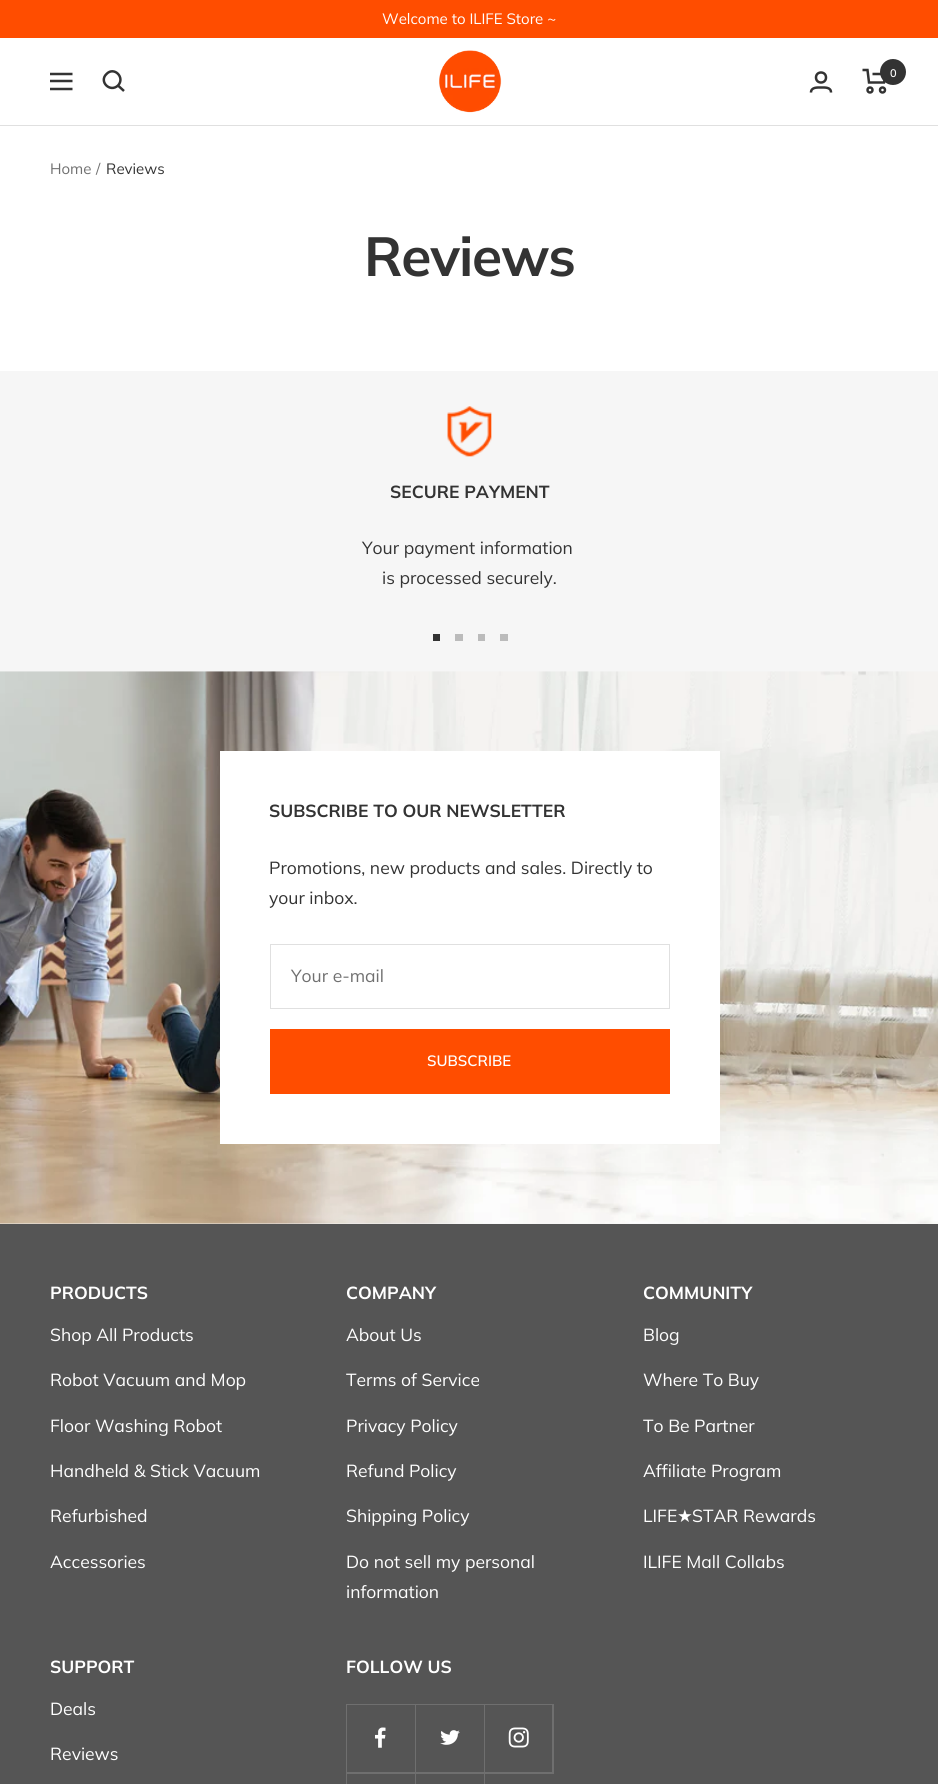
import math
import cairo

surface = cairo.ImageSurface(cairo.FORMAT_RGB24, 938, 1784)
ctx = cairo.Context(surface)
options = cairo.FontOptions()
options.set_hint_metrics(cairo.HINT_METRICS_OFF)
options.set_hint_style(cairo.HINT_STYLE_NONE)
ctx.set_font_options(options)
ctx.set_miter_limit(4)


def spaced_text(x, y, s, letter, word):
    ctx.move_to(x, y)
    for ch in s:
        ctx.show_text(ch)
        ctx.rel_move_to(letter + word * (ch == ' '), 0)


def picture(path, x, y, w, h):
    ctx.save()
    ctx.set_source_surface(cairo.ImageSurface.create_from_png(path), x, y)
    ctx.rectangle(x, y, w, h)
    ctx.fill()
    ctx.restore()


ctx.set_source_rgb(1, 1, 1)
ctx.paint()
ctx.set_source_rgb(1, 0.302, 0)
ctx.rectangle(0, 0, 938, 38)
ctx.fill()
ctx.select_font_face("Muli")
ctx.set_font_size(15)
ctx.set_source_rgb(1, 1, 1)
ctx.move_to(382, 24)
ctx.show_text("Welcome to ILIFE Store ~")
ctx.set_source_rgb(0.878, 0.878, 0.878)
ctx.new_path()
ctx.move_to(0, 125)
ctx.line_to(0, 126)
ctx.line_to(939, 126)
ctx.line_to(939, 39)
ctx.line_to(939, 125)
ctx.close_path()
ctx.fill()
ctx.new_path()
ctx.move_to(50, 74)
ctx.line_to(72.5, 74)
ctx.move_to(50, 89)
ctx.line_to(72.5, 89)
ctx.close_path()
ctx.move_to(50, 81)
ctx.line_to(72.5, 81)
ctx.close_path()
ctx.set_source_rgb(0.2, 0.2, 0.2)
ctx.set_line_width(2.5)
ctx.stroke()
ctx.new_path()
ctx.move_to(118, 85.5)
ctx.curve_to(125.5, 77.5, 114, 66, 106.5, 74)
ctx.curve_to(98.5, 81.5, 110, 93, 118, 85.5)
ctx.close_path()
ctx.move_to(118, 85.5)
ctx.line_to(124, 91)
ctx.stroke()
picture("img1.png", 439, 50, 63, 63)
ctx.arc(821, 77.5, 5, 0, 2 * math.pi)
ctx.stroke()
ctx.new_path()
ctx.move_to(811, 92.5)
ctx.curve_to(811, 87, 817.5, 87.5, 821, 87.5)
ctx.curve_to(825, 87.5, 831, 87, 831, 92.5)
ctx.stroke()
ctx.new_path()
ctx.move_to(862.5, 70)
ctx.line_to(867.5, 70)
ctx.line_to(869, 82.5)
ctx.line_to(884, 82.5)
ctx.line_to(886, 74)
ctx.line_to(872.5, 74)
ctx.stroke()
ctx.arc(870, 90, 2.5, 0, 2 * math.pi)
ctx.stroke()
ctx.arc(882.5, 90, 2.5, 0, 2 * math.pi)
ctx.stroke()
ctx.arc(893, 72, 13, 0, 2 * math.pi)
ctx.fill()
ctx.select_font_face("Muli SemiBold")
ctx.set_font_size(11)
ctx.set_source_rgb(1, 1, 1)
ctx.move_to(890, 77)
ctx.show_text("0")
ctx.select_font_face("Muli")
ctx.set_font_size(15)
ctx.set_source_rgb(0.439, 0.439, 0.439)
ctx.move_to(50, 174)
ctx.show_text("Home")
ctx.move_to(96, 174)
ctx.show_text("/")
ctx.set_source_rgb(0.2, 0.2, 0.2)
ctx.move_to(106, 174)
ctx.show_text("Reviews")
ctx.select_font_face("Muli", cairo.FONT_SLANT_NORMAL, cairo.FONT_WEIGHT_BOLD)
ctx.set_font_size(55)
spaced_text(364, 276, "Reviews", -1.25, 0)
ctx.set_source_rgb(0.961, 0.961, 0.961)
ctx.rectangle(0, 371, 938, 853)
ctx.fill()
picture("img2.png", 447, 406, 45, 51)
ctx.set_font_size(17.5)
ctx.set_source_rgb(0.2, 0.2, 0.2)
ctx.move_to(390, 498)
ctx.show_text("SECURE PAYMENT")
ctx.select_font_face("Muli")
ctx.move_to(362, 554)
ctx.show_text("Your payment information")
ctx.move_to(382, 584)
ctx.show_text("is processed securely.")
ctx.rectangle(433, 634, 7, 7)
ctx.fill()
ctx.set_source_rgb(0.733, 0.733, 0.733)
ctx.rectangle(455, 634, 8, 7)
ctx.fill()
ctx.rectangle(478, 634, 7, 7)
ctx.fill()
ctx.rectangle(500, 634, 8, 7)
ctx.fill()
picture("img3.png", 0, 671, 938, 553)
ctx.set_source_rgb(1, 1, 1)
ctx.rectangle(220, 751, 500, 393)
ctx.fill()
ctx.select_font_face("Muli", cairo.FONT_SLANT_NORMAL, cairo.FONT_WEIGHT_BOLD)
ctx.set_source_rgb(0.2, 0.2, 0.2)
ctx.move_to(269, 817)
ctx.show_text("SUBSCRIBE TO OUR NEWSLETTER")
ctx.select_font_face("Muli")
ctx.move_to(269, 874)
ctx.show_text("Promotions, new products and sales. Directly to")
ctx.move_to(269, 904)
ctx.show_text("your inbox.")
ctx.rectangle(270.5, 944.5, 399, 64)
ctx.set_source_rgb(0.878, 0.878, 0.878)
ctx.set_line_width(1)
ctx.stroke()
ctx.set_source_rgb(0.439, 0.439, 0.439)
ctx.move_to(291, 982)
ctx.show_text("Your e-mail")
ctx.set_source_rgb(1, 0.302, 0)
ctx.rectangle(270, 1029, 400, 65)
ctx.fill()
ctx.select_font_face("Muli SemiBold")
ctx.set_font_size(15)
ctx.set_source_rgb(1, 1, 1)
ctx.move_to(427, 1066)
ctx.show_text("SUBSCRIBE")
ctx.set_source_rgb(0.333, 0.333, 0.333)
ctx.rectangle(0, 1224, 938, 560)
ctx.fill()
ctx.select_font_face("Muli", cairo.FONT_SLANT_NORMAL, cairo.FONT_WEIGHT_BOLD)
ctx.set_font_size(17.5)
ctx.set_source_rgb(1, 1, 1)
ctx.move_to(50, 1299)
ctx.show_text("PRODUCTS")
ctx.select_font_face("Muli")
ctx.move_to(50, 1341)
ctx.show_text("Shop All Products")
ctx.move_to(50, 1386)
ctx.show_text("Robot Vacuum and Mop")
ctx.move_to(50, 1432)
ctx.show_text("Floor Washing Robot")
ctx.move_to(50, 1477)
ctx.show_text("Handheld & Stick Vacuum")
ctx.move_to(50, 1522)
ctx.show_text("Refurbished")
ctx.move_to(50, 1568)
ctx.show_text("Accessories")
ctx.select_font_face("Muli", cairo.FONT_SLANT_NORMAL, cairo.FONT_WEIGHT_BOLD)
ctx.move_to(346, 1299)
ctx.show_text("COMPANY")
ctx.select_font_face("Muli")
ctx.move_to(346, 1341)
ctx.show_text("About Us")
ctx.move_to(346, 1386)
ctx.show_text("Terms of Service")
ctx.move_to(346, 1432)
ctx.show_text("Privacy Policy")
ctx.move_to(346, 1477)
ctx.show_text("Refund Policy")
ctx.move_to(346, 1522)
ctx.show_text("Shipping Policy")
ctx.move_to(346, 1568)
ctx.show_text("Do not sell my personal")
ctx.move_to(346, 1598)
ctx.show_text("information")
ctx.select_font_face("Muli", cairo.FONT_SLANT_NORMAL, cairo.FONT_WEIGHT_BOLD)
ctx.move_to(643, 1299)
ctx.show_text("COMMUNITY")
ctx.select_font_face("Muli")
ctx.move_to(643, 1341)
ctx.show_text("Blog")
ctx.move_to(643, 1386)
ctx.show_text("Where To Buy")
ctx.move_to(643, 1432)
ctx.show_text("To Be Partner")
ctx.move_to(643, 1477)
ctx.show_text("Affiliate Program")
ctx.move_to(643, 1522)
ctx.show_text("LIFE")
ctx.select_font_face("DejaVu Sans")
ctx.move_to(677, 1522)
ctx.show_text("★")
ctx.select_font_face("Muli")
ctx.move_to(692, 1522)
ctx.show_text("STAR Rewards")
ctx.move_to(643, 1568)
ctx.show_text("ILIFE Mall Collabs")
ctx.select_font_face("Muli", cairo.FONT_SLANT_NORMAL, cairo.FONT_WEIGHT_BOLD)
ctx.move_to(50, 1673)
ctx.show_text("SUPPORT")
ctx.select_font_face("Muli")
ctx.move_to(50, 1715)
ctx.show_text("Deals")
ctx.move_to(50, 1760)
ctx.show_text("Reviews")
ctx.select_font_face("Muli", cairo.FONT_SLANT_NORMAL, cairo.FONT_WEIGHT_BOLD)
ctx.move_to(346, 1673)
ctx.show_text("FOLLOW US")
ctx.set_source_rgb(0.435, 0.435, 0.435)
ctx.new_path()
ctx.move_to(348, 1772)
ctx.line_to(348, 1774)
ctx.line_to(416, 1774)
ctx.line_to(416, 1705)
ctx.line_to(415, 1705)
ctx.line_to(415, 1772)
ctx.close_path()
ctx.fill()
ctx.new_path()
ctx.move_to(346, 1705)
ctx.line_to(346, 1774)
ctx.line_to(415, 1774)
ctx.line_to(415, 1772)
ctx.line_to(346, 1772)
ctx.close_path()
ctx.fill()
ctx.new_path()
ctx.move_to(348, 1772)
ctx.line_to(348, 1773)
ctx.line_to(416, 1773)
ctx.line_to(416, 1704)
ctx.line_to(415, 1704)
ctx.line_to(415, 1772)
ctx.close_path()
ctx.fill()
ctx.rectangle(346, 1704, 69, 1)
ctx.fill()
ctx.rectangle(346, 1704, 1, 80)
ctx.fill()
picture("img4.png", 375, 1727, 11, 21)
ctx.new_path()
ctx.move_to(416, 1772)
ctx.line_to(416, 1774)
ctx.line_to(485, 1774)
ctx.line_to(485, 1705)
ctx.line_to(484, 1705)
ctx.line_to(484, 1772)
ctx.close_path()
ctx.fill()
ctx.new_path()
ctx.move_to(416, 1772)
ctx.line_to(416, 1773)
ctx.line_to(485, 1773)
ctx.line_to(485, 1704)
ctx.line_to(484, 1704)
ctx.line_to(484, 1772)
ctx.close_path()
ctx.fill()
ctx.rectangle(415, 1704, 69, 1)
ctx.fill()
picture("img5.png", 440, 1730, 20, 15)
ctx.new_path()
ctx.move_to(485, 1772)
ctx.line_to(485, 1774)
ctx.line_to(554, 1774)
ctx.line_to(554, 1705)
ctx.line_to(552, 1705)
ctx.line_to(552, 1772)
ctx.close_path()
ctx.fill()
ctx.new_path()
ctx.move_to(485, 1772)
ctx.line_to(485, 1773)
ctx.line_to(554, 1773)
ctx.line_to(554, 1704)
ctx.line_to(552, 1704)
ctx.line_to(552, 1772)
ctx.close_path()
ctx.fill()
ctx.rectangle(484, 1704, 69, 1)
ctx.fill()
picture("img6.png", 508, 1727, 21, 21)
ctx.new_path()
ctx.move_to(348, 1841)
ctx.line_to(348, 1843)
ctx.line_to(416, 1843)
ctx.line_to(416, 1774)
ctx.line_to(415, 1774)
ctx.line_to(415, 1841)
ctx.close_path()
ctx.fill()
ctx.new_path()
ctx.move_to(416, 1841)
ctx.line_to(416, 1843)
ctx.line_to(485, 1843)
ctx.line_to(485, 1774)
ctx.line_to(484, 1774)
ctx.line_to(484, 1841)
ctx.close_path()
ctx.fill()
surface.write_to_png("page.png")
